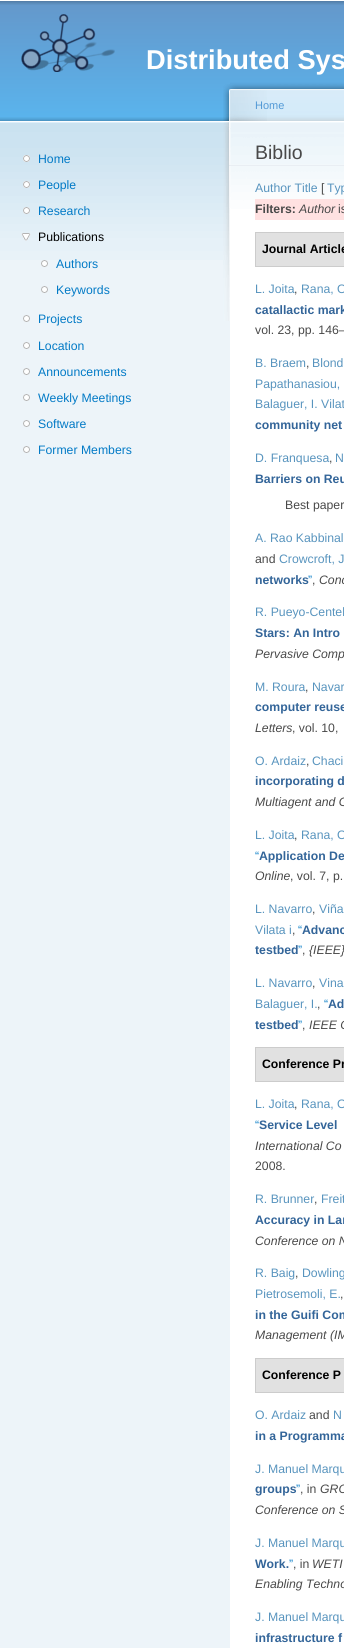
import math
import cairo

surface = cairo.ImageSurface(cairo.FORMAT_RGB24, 344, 1648)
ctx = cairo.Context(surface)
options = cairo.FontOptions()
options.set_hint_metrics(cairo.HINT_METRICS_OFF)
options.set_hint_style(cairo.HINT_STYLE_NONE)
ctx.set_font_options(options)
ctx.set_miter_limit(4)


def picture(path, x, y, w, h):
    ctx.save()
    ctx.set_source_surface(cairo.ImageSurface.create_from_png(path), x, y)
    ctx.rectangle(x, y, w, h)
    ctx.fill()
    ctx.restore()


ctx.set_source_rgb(0.929, 0.957, 0.976)
ctx.paint()
picture("img1.png", 0, 0, 344, 260)
picture("img2.png", 21, 14, 94, 58)
ctx.select_font_face("Liberation Sans", cairo.FONT_SLANT_NORMAL, cairo.FONT_WEIGHT_BOLD)
ctx.set_font_size(27.25)
ctx.set_source_rgb(1, 1, 1)
ctx.move_to(146, 69)
ctx.show_text("Distributed Sys")
picture("img3.png", 23, 155, 7, 7)
ctx.select_font_face("Liberation Sans")
ctx.set_font_size(12.25)
ctx.set_source_rgb(0.008, 0.478, 0.776)
ctx.move_to(38, 163)
ctx.show_text("Home")
picture("img4.png", 23, 181, 7, 7)
ctx.move_to(38, 189)
ctx.show_text("People")
picture("img5.png", 23, 207, 7, 7)
ctx.move_to(38, 215)
ctx.show_text("Research")
picture("img6.png", 21, 233, 10, 8)
ctx.set_source_rgb(0, 0, 0)
ctx.move_to(38, 241)
ctx.show_text("Publications")
picture("img7.png", 41, 260, 7, 7)
ctx.set_source_rgb(0.008, 0.478, 0.776)
ctx.move_to(56, 268)
ctx.show_text("Authors")
picture("img7.png", 41, 286, 7, 7)
ctx.move_to(56, 294)
ctx.show_text("Keywords")
picture("img7.png", 23, 315, 7, 7)
ctx.move_to(38, 323)
ctx.show_text("Projects")
picture("img7.png", 23, 342, 7, 7)
ctx.move_to(38, 350)
ctx.show_text("Location")
picture("img7.png", 23, 368, 7, 7)
ctx.move_to(38, 376)
ctx.show_text("Announcements")
picture("img7.png", 23, 394, 7, 7)
ctx.move_to(38, 402)
ctx.show_text("Weekly Meetings")
picture("img7.png", 23, 420, 7, 7)
ctx.move_to(38, 428)
ctx.show_text("Software")
picture("img7.png", 23, 446, 7, 7)
ctx.move_to(38, 454)
ctx.show_text("Former Members")
ctx.set_source_rgb(1, 1, 1)
ctx.rectangle(230, 220, 114, 1428)
ctx.fill()
picture("img8.png", 230, 80, 114, 119)
picture("img9.png", 223, 84, 44, 237)
ctx.set_font_size(11)
ctx.set_source_rgb(0.322, 0.6, 0.839)
ctx.move_to(255, 109)
ctx.show_text("Home")
ctx.set_source_rgb(0.914, 0.933, 0.953)
ctx.rectangle(229, 165, 115, 1)
ctx.fill()
ctx.set_font_size(19.5)
ctx.set_source_rgb(0.286, 0.286, 0.286)
ctx.move_to(255, 159)
ctx.show_text("Biblio")
ctx.set_font_size(12.25)
ctx.set_source_rgb(0.345, 0.58, 0.745)
ctx.move_to(255, 192)
ctx.show_text("Author Title")
ctx.set_source_rgb(0.286, 0.286, 0.286)
ctx.move_to(321, 192)
ctx.show_text("[")
ctx.set_source_rgb(0.345, 0.58, 0.745)
ctx.move_to(327, 192)
ctx.show_text("Typ")
ctx.set_source_rgb(1, 0.882, 0.882)
ctx.rectangle(255, 199, 89, 21)
ctx.fill()
ctx.select_font_face("Liberation Sans", cairo.FONT_SLANT_NORMAL, cairo.FONT_WEIGHT_BOLD)
ctx.set_source_rgb(0.286, 0.286, 0.286)
ctx.move_to(255, 213)
ctx.show_text("Filters:")
ctx.select_font_face("Liberation Sans", cairo.FONT_SLANT_ITALIC)
ctx.move_to(299, 213)
ctx.show_text("Author")
ctx.select_font_face("Liberation Sans")
ctx.move_to(338, 213)
ctx.show_text("is")
ctx.set_source_rgb(0.882, 0.882, 0.882)
ctx.rectangle(255.5, 232.5, 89, 34)
ctx.fill_preserve()
ctx.set_source_rgb(0.8, 0.8, 0.8)
ctx.set_line_width(1)
ctx.stroke()
ctx.select_font_face("Liberation Sans", cairo.FONT_SLANT_NORMAL, cairo.FONT_WEIGHT_BOLD)
ctx.set_source_rgb(0, 0, 0)
ctx.move_to(262, 253)
ctx.show_text("Journal Article")
ctx.select_font_face("Liberation Sans")
ctx.set_source_rgb(0.345, 0.58, 0.745)
ctx.move_to(255, 293)
ctx.show_text("L. Joita")
ctx.set_source_rgb(0.286, 0.286, 0.286)
ctx.move_to(294, 293)
ctx.show_text(",")
ctx.set_source_rgb(0.345, 0.58, 0.745)
ctx.move_to(301, 293)
ctx.show_text("Rana, O")
ctx.select_font_face("Liberation Sans", cairo.FONT_SLANT_NORMAL, cairo.FONT_WEIGHT_BOLD)
ctx.set_source_rgb(0.2, 0.396, 0.6)
ctx.move_to(255, 314)
ctx.show_text("catallactic mark")
ctx.select_font_face("Liberation Sans")
ctx.set_source_rgb(0.286, 0.286, 0.286)
ctx.move_to(255, 334)
ctx.show_text("vol. 23, pp. 146–")
ctx.set_source_rgb(0.345, 0.58, 0.745)
ctx.move_to(255, 367)
ctx.show_text("B. Braem")
ctx.set_source_rgb(0.286, 0.286, 0.286)
ctx.move_to(306, 367)
ctx.show_text(",")
ctx.set_source_rgb(0.345, 0.58, 0.745)
ctx.move_to(312, 367)
ctx.show_text("Blond")
ctx.move_to(255, 388)
ctx.show_text("Papathanasiou,")
ctx.move_to(255, 408)
ctx.show_text("Balaguer, I. Vilat")
ctx.select_font_face("Liberation Sans", cairo.FONT_SLANT_NORMAL, cairo.FONT_WEIGHT_BOLD)
ctx.set_source_rgb(0.2, 0.396, 0.6)
ctx.move_to(255, 429)
ctx.show_text("community net")
ctx.select_font_face("Liberation Sans")
ctx.set_source_rgb(0.345, 0.58, 0.745)
ctx.move_to(255, 462)
ctx.show_text("D. Franquesa")
ctx.set_source_rgb(0.286, 0.286, 0.286)
ctx.move_to(329, 462)
ctx.show_text(",")
ctx.set_source_rgb(0.345, 0.58, 0.745)
ctx.move_to(335, 462)
ctx.show_text("N")
ctx.select_font_face("Liberation Sans", cairo.FONT_SLANT_NORMAL, cairo.FONT_WEIGHT_BOLD)
ctx.set_source_rgb(0.2, 0.396, 0.6)
ctx.move_to(255, 483)
ctx.show_text("Barriers on Reu")
ctx.select_font_face("Liberation Sans")
ctx.set_source_rgb(0.286, 0.286, 0.286)
ctx.move_to(285, 509)
ctx.show_text("Best paper")
ctx.set_source_rgb(0.345, 0.58, 0.745)
ctx.move_to(255, 542)
ctx.show_text("A. Rao Kabbinal")
ctx.set_source_rgb(0.286, 0.286, 0.286)
ctx.move_to(255, 563)
ctx.show_text("and")
ctx.set_source_rgb(0.345, 0.58, 0.745)
ctx.move_to(279, 563)
ctx.show_text("Crowcroft, J")
ctx.select_font_face("Liberation Sans", cairo.FONT_SLANT_NORMAL, cairo.FONT_WEIGHT_BOLD)
ctx.set_source_rgb(0.2, 0.396, 0.6)
ctx.move_to(255, 584)
ctx.show_text("networks")
ctx.select_font_face("Liberation Sans")
ctx.set_source_rgb(0.008, 0.478, 0.776)
ctx.move_to(308, 584)
ctx.show_text("”")
ctx.set_source_rgb(0.286, 0.286, 0.286)
ctx.move_to(312, 584)
ctx.show_text(",")
ctx.select_font_face("Liberation Sans", cairo.FONT_SLANT_ITALIC)
ctx.move_to(319, 584)
ctx.show_text("Conc")
ctx.select_font_face("Liberation Sans")
ctx.set_source_rgb(0.345, 0.58, 0.745)
ctx.move_to(255, 616)
ctx.show_text("R. Pueyo-Centel")
ctx.select_font_face("Liberation Sans", cairo.FONT_SLANT_NORMAL, cairo.FONT_WEIGHT_BOLD)
ctx.set_source_rgb(0.2, 0.396, 0.6)
ctx.move_to(255, 637)
ctx.show_text("Stars: An Intro")
ctx.select_font_face("Liberation Sans", cairo.FONT_SLANT_ITALIC)
ctx.set_source_rgb(0.286, 0.286, 0.286)
ctx.move_to(255, 658)
ctx.show_text("Pervasive Comp")
ctx.select_font_face("Liberation Sans")
ctx.set_source_rgb(0.345, 0.58, 0.745)
ctx.move_to(255, 691)
ctx.show_text("M. Roura")
ctx.set_source_rgb(0.286, 0.286, 0.286)
ctx.move_to(305, 691)
ctx.show_text(",")
ctx.set_source_rgb(0.345, 0.58, 0.745)
ctx.move_to(312, 691)
ctx.show_text("Navar")
ctx.select_font_face("Liberation Sans", cairo.FONT_SLANT_NORMAL, cairo.FONT_WEIGHT_BOLD)
ctx.set_source_rgb(0.2, 0.396, 0.6)
ctx.move_to(255, 711)
ctx.show_text("computer reuse")
ctx.select_font_face("Liberation Sans", cairo.FONT_SLANT_ITALIC)
ctx.set_source_rgb(0.286, 0.286, 0.286)
ctx.move_to(255, 732)
ctx.show_text("Letters")
ctx.select_font_face("Liberation Sans")
ctx.move_to(292, 732)
ctx.show_text(", vol. 10,")
ctx.set_source_rgb(0.345, 0.58, 0.745)
ctx.move_to(255, 765)
ctx.show_text("O. Ardaiz")
ctx.set_source_rgb(0.286, 0.286, 0.286)
ctx.move_to(306, 765)
ctx.show_text(",")
ctx.set_source_rgb(0.345, 0.58, 0.745)
ctx.move_to(312, 765)
ctx.show_text("Chaci")
ctx.select_font_face("Liberation Sans", cairo.FONT_SLANT_NORMAL, cairo.FONT_WEIGHT_BOLD)
ctx.set_source_rgb(0.2, 0.396, 0.6)
ctx.move_to(255, 785)
ctx.show_text("incorporating d")
ctx.select_font_face("Liberation Sans", cairo.FONT_SLANT_ITALIC)
ctx.set_source_rgb(0.286, 0.286, 0.286)
ctx.move_to(255, 806)
ctx.show_text("Multiagent and G")
ctx.select_font_face("Liberation Sans")
ctx.set_source_rgb(0.345, 0.58, 0.745)
ctx.move_to(255, 839)
ctx.show_text("L. Joita")
ctx.set_source_rgb(0.286, 0.286, 0.286)
ctx.move_to(294, 839)
ctx.show_text(",")
ctx.set_source_rgb(0.345, 0.58, 0.745)
ctx.move_to(301, 839)
ctx.show_text("Rana, O")
ctx.set_source_rgb(0.008, 0.478, 0.776)
ctx.move_to(255, 860)
ctx.show_text("“")
ctx.select_font_face("Liberation Sans", cairo.FONT_SLANT_NORMAL, cairo.FONT_WEIGHT_BOLD)
ctx.set_source_rgb(0.2, 0.396, 0.6)
ctx.move_to(259, 860)
ctx.show_text("Application De")
ctx.select_font_face("Liberation Sans", cairo.FONT_SLANT_ITALIC)
ctx.set_source_rgb(0.286, 0.286, 0.286)
ctx.move_to(255, 880)
ctx.show_text("Online")
ctx.select_font_face("Liberation Sans")
ctx.move_to(290, 880)
ctx.show_text(", vol. 7, p.")
ctx.set_source_rgb(0.345, 0.58, 0.745)
ctx.move_to(255, 913)
ctx.show_text("L. Navarro")
ctx.set_source_rgb(0.286, 0.286, 0.286)
ctx.move_to(312, 913)
ctx.show_text(",")
ctx.set_source_rgb(0.345, 0.58, 0.745)
ctx.move_to(319, 913)
ctx.show_text("Viña")
ctx.move_to(255, 934)
ctx.show_text("Vilata i")
ctx.set_source_rgb(0.286, 0.286, 0.286)
ctx.move_to(292, 934)
ctx.show_text(",")
ctx.set_source_rgb(0.008, 0.478, 0.776)
ctx.move_to(298, 934)
ctx.show_text("“")
ctx.select_font_face("Liberation Sans", cairo.FONT_SLANT_NORMAL, cairo.FONT_WEIGHT_BOLD)
ctx.set_source_rgb(0.2, 0.396, 0.6)
ctx.move_to(302, 934)
ctx.show_text("Advanc")
ctx.move_to(255, 954)
ctx.show_text("testbed")
ctx.select_font_face("Liberation Sans")
ctx.set_source_rgb(0.008, 0.478, 0.776)
ctx.move_to(298, 954)
ctx.show_text("”")
ctx.set_source_rgb(0.286, 0.286, 0.286)
ctx.move_to(302, 954)
ctx.show_text(",")
ctx.select_font_face("Liberation Sans", cairo.FONT_SLANT_ITALIC)
ctx.move_to(309, 954)
ctx.show_text("{IEEE}")
ctx.select_font_face("Liberation Sans")
ctx.set_source_rgb(0.345, 0.58, 0.745)
ctx.move_to(255, 987)
ctx.show_text("L. Navarro")
ctx.set_source_rgb(0.286, 0.286, 0.286)
ctx.move_to(312, 987)
ctx.show_text(",")
ctx.set_source_rgb(0.345, 0.58, 0.745)
ctx.move_to(319, 987)
ctx.show_text("Vina")
ctx.move_to(255, 1008)
ctx.show_text("Balaguer, I.")
ctx.set_source_rgb(0.286, 0.286, 0.286)
ctx.move_to(317, 1008)
ctx.show_text(",")
ctx.set_source_rgb(0.008, 0.478, 0.776)
ctx.move_to(324, 1008)
ctx.show_text("“")
ctx.select_font_face("Liberation Sans", cairo.FONT_SLANT_NORMAL, cairo.FONT_WEIGHT_BOLD)
ctx.set_source_rgb(0.2, 0.396, 0.6)
ctx.move_to(328, 1008)
ctx.show_text("Ad")
ctx.move_to(255, 1029)
ctx.show_text("testbed")
ctx.select_font_face("Liberation Sans")
ctx.set_source_rgb(0.008, 0.478, 0.776)
ctx.move_to(298, 1029)
ctx.show_text("”")
ctx.set_source_rgb(0.286, 0.286, 0.286)
ctx.move_to(302, 1029)
ctx.show_text(",")
ctx.select_font_face("Liberation Sans", cairo.FONT_SLANT_ITALIC)
ctx.move_to(309, 1029)
ctx.show_text("IEEE C")
ctx.set_source_rgb(0.882, 0.882, 0.882)
ctx.rectangle(255.5, 1047.5, 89, 34)
ctx.fill_preserve()
ctx.set_source_rgb(0.8, 0.8, 0.8)
ctx.stroke()
ctx.select_font_face("Liberation Sans", cairo.FONT_SLANT_NORMAL, cairo.FONT_WEIGHT_BOLD)
ctx.set_source_rgb(0, 0, 0)
ctx.move_to(262, 1068)
ctx.show_text("Conference Pr")
ctx.select_font_face("Liberation Sans")
ctx.set_source_rgb(0.345, 0.58, 0.745)
ctx.move_to(255, 1108)
ctx.show_text("L. Joita")
ctx.set_source_rgb(0.286, 0.286, 0.286)
ctx.move_to(294, 1108)
ctx.show_text(",")
ctx.set_source_rgb(0.345, 0.58, 0.745)
ctx.move_to(301, 1108)
ctx.show_text("Rana, O")
ctx.set_source_rgb(0.008, 0.478, 0.776)
ctx.move_to(255, 1129)
ctx.show_text("“")
ctx.select_font_face("Liberation Sans", cairo.FONT_SLANT_NORMAL, cairo.FONT_WEIGHT_BOLD)
ctx.set_source_rgb(0.2, 0.396, 0.6)
ctx.move_to(259, 1129)
ctx.show_text("Service Level")
ctx.select_font_face("Liberation Sans", cairo.FONT_SLANT_ITALIC)
ctx.set_source_rgb(0.286, 0.286, 0.286)
ctx.move_to(255, 1150)
ctx.show_text("International Co")
ctx.select_font_face("Liberation Sans")
ctx.move_to(255, 1170)
ctx.show_text("2008.")
ctx.set_source_rgb(0.345, 0.58, 0.745)
ctx.move_to(255, 1203)
ctx.show_text("R. Brunner")
ctx.set_source_rgb(0.286, 0.286, 0.286)
ctx.move_to(314, 1203)
ctx.show_text(",")
ctx.set_source_rgb(0.345, 0.58, 0.745)
ctx.move_to(321, 1203)
ctx.show_text("Freit")
ctx.select_font_face("Liberation Sans", cairo.FONT_SLANT_NORMAL, cairo.FONT_WEIGHT_BOLD)
ctx.set_source_rgb(0.2, 0.396, 0.6)
ctx.move_to(255, 1224)
ctx.show_text("Accuracy in Lar")
ctx.select_font_face("Liberation Sans", cairo.FONT_SLANT_ITALIC)
ctx.set_source_rgb(0.286, 0.286, 0.286)
ctx.move_to(255, 1245)
ctx.show_text("Conference on N")
ctx.select_font_face("Liberation Sans")
ctx.set_source_rgb(0.345, 0.58, 0.745)
ctx.move_to(255, 1277)
ctx.show_text("R. Baig")
ctx.set_source_rgb(0.286, 0.286, 0.286)
ctx.move_to(295, 1277)
ctx.show_text(",")
ctx.set_source_rgb(0.345, 0.58, 0.745)
ctx.move_to(302, 1277)
ctx.show_text("Dowling")
ctx.move_to(255, 1298)
ctx.show_text("Pietrosemoli, E.")
ctx.set_source_rgb(0.286, 0.286, 0.286)
ctx.move_to(340, 1298)
ctx.show_text(",")
ctx.select_font_face("Liberation Sans", cairo.FONT_SLANT_NORMAL, cairo.FONT_WEIGHT_BOLD)
ctx.set_source_rgb(0.2, 0.396, 0.6)
ctx.move_to(255, 1319)
ctx.show_text("in the Guifi Com")
ctx.select_font_face("Liberation Sans", cairo.FONT_SLANT_ITALIC)
ctx.set_source_rgb(0.286, 0.286, 0.286)
ctx.move_to(255, 1339)
ctx.show_text("Management (IM")
ctx.set_source_rgb(0.882, 0.882, 0.882)
ctx.rectangle(255.5, 1358.5, 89, 34)
ctx.fill_preserve()
ctx.set_source_rgb(0.8, 0.8, 0.8)
ctx.stroke()
ctx.select_font_face("Liberation Sans", cairo.FONT_SLANT_NORMAL, cairo.FONT_WEIGHT_BOLD)
ctx.set_source_rgb(0, 0, 0)
ctx.move_to(262, 1379)
ctx.show_text("Conference P")
ctx.select_font_face("Liberation Sans")
ctx.set_source_rgb(0.345, 0.58, 0.745)
ctx.move_to(255, 1419)
ctx.show_text("O. Ardaiz")
ctx.set_source_rgb(0.286, 0.286, 0.286)
ctx.move_to(309, 1419)
ctx.show_text("and")
ctx.set_source_rgb(0.345, 0.58, 0.745)
ctx.move_to(333, 1419)
ctx.show_text("N")
ctx.select_font_face("Liberation Sans", cairo.FONT_SLANT_NORMAL, cairo.FONT_WEIGHT_BOLD)
ctx.set_source_rgb(0.2, 0.396, 0.6)
ctx.move_to(255, 1440)
ctx.show_text("in a Programma")
ctx.select_font_face("Liberation Sans")
ctx.set_source_rgb(0.345, 0.58, 0.745)
ctx.move_to(255, 1473)
ctx.show_text("J. Manuel Marqu")
ctx.select_font_face("Liberation Sans", cairo.FONT_SLANT_NORMAL, cairo.FONT_WEIGHT_BOLD)
ctx.set_source_rgb(0.2, 0.396, 0.6)
ctx.move_to(255, 1493)
ctx.show_text("groups")
ctx.select_font_face("Liberation Sans")
ctx.set_source_rgb(0.008, 0.478, 0.776)
ctx.move_to(296, 1493)
ctx.show_text("”")
ctx.set_source_rgb(0.286, 0.286, 0.286)
ctx.move_to(300, 1493)
ctx.show_text(", in")
ctx.select_font_face("Liberation Sans", cairo.FONT_SLANT_ITALIC)
ctx.move_to(320, 1493)
ctx.show_text("GRO")
ctx.move_to(255, 1514)
ctx.show_text("Conference on S")
ctx.select_font_face("Liberation Sans")
ctx.set_source_rgb(0.345, 0.58, 0.745)
ctx.move_to(255, 1547)
ctx.show_text("J. Manuel Marqu")
ctx.select_font_face("Liberation Sans", cairo.FONT_SLANT_NORMAL, cairo.FONT_WEIGHT_BOLD)
ctx.set_source_rgb(0.2, 0.396, 0.6)
ctx.move_to(255, 1568)
ctx.show_text("Work.")
ctx.select_font_face("Liberation Sans")
ctx.set_source_rgb(0.008, 0.478, 0.776)
ctx.move_to(289, 1568)
ctx.show_text("”")
ctx.set_source_rgb(0.286, 0.286, 0.286)
ctx.move_to(293, 1568)
ctx.show_text(", in")
ctx.select_font_face("Liberation Sans", cairo.FONT_SLANT_ITALIC)
ctx.move_to(312, 1568)
ctx.show_text("WETI")
ctx.move_to(255, 1588)
ctx.show_text("Enabling Techno")
ctx.select_font_face("Liberation Sans")
ctx.set_source_rgb(0.345, 0.58, 0.745)
ctx.move_to(255, 1621)
ctx.show_text("J. Manuel Marqu")
ctx.select_font_face("Liberation Sans", cairo.FONT_SLANT_NORMAL, cairo.FONT_WEIGHT_BOLD)
ctx.set_source_rgb(0.2, 0.396, 0.6)
ctx.move_to(255, 1642)
ctx.show_text("infrastructure f")
surface.write_to_png("page.png")
